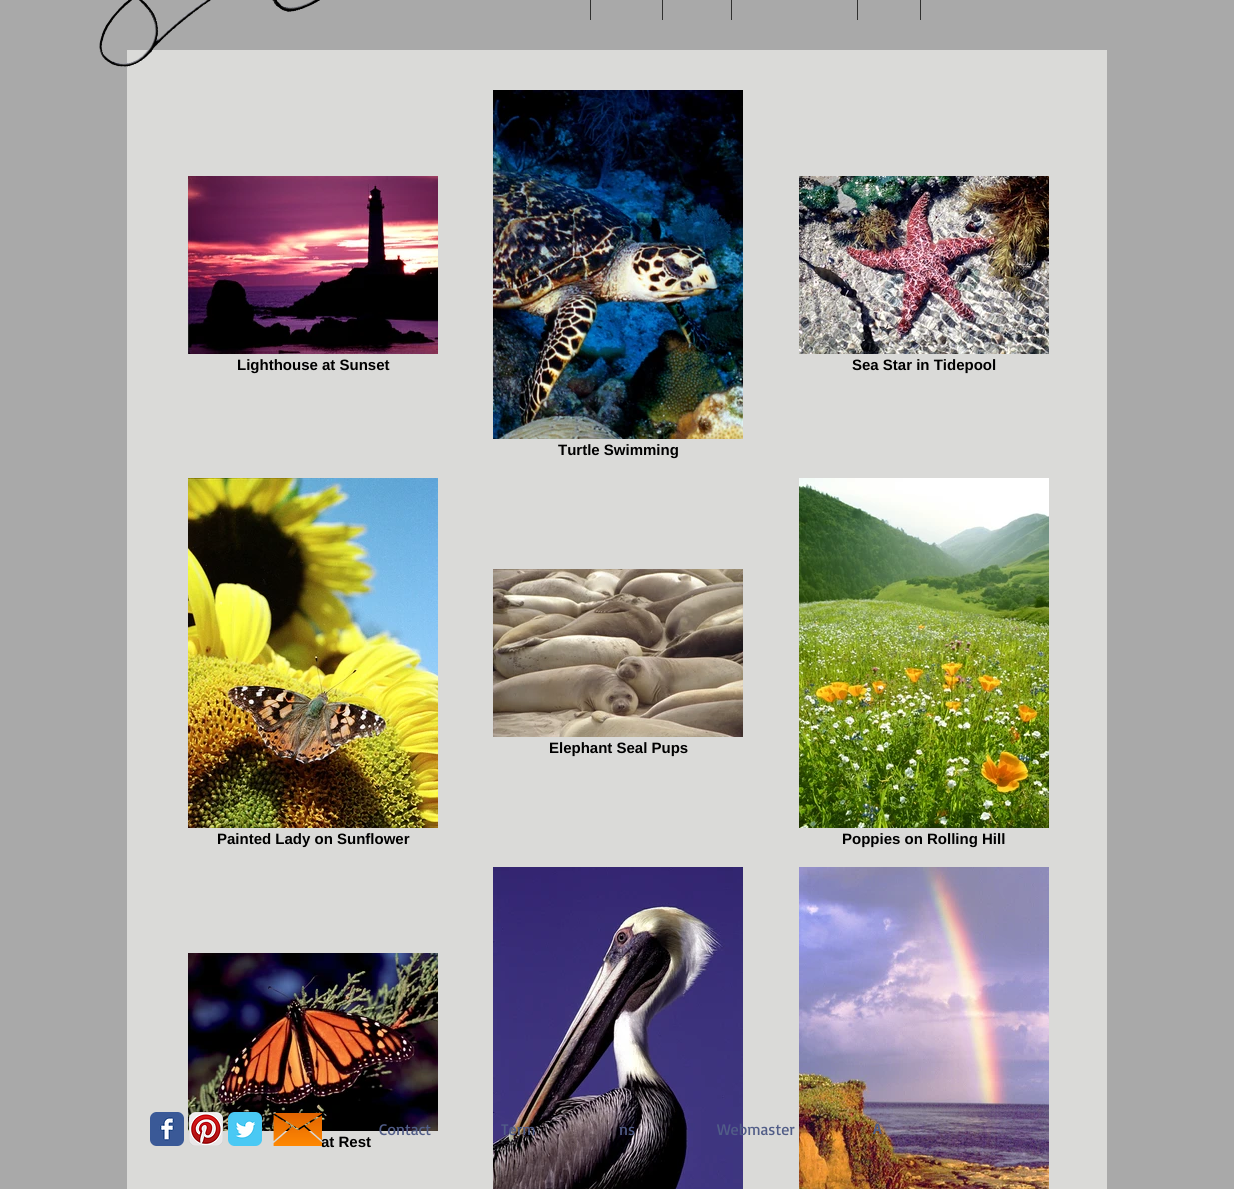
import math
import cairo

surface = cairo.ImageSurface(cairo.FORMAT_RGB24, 1234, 1189)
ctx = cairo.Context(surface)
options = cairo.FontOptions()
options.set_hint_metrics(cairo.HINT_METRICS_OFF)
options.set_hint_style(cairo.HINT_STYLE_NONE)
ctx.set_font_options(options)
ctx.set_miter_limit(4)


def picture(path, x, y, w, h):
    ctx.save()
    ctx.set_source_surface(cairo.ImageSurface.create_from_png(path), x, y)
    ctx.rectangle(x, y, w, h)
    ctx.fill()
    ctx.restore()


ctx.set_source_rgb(0.663, 0.663, 0.663)
ctx.paint()
ctx.set_source_rgb(0.855, 0.855, 0.847)
ctx.rectangle(127, 50, 980, 1139)
ctx.fill()
picture("img1.png", 99, 0, 221, 67)
ctx.set_source_rgb(0.188, 0.188, 0.184)
ctx.rectangle(590, 0, 1, 20)
ctx.fill()
ctx.rectangle(662, 0, 1, 20)
ctx.fill()
ctx.rectangle(731, 0, 1, 20)
ctx.fill()
ctx.rectangle(857, 0, 1, 20)
ctx.fill()
ctx.rectangle(920, 0, 1, 20)
ctx.fill()
picture("img2.png", 188, 176, 250, 178)
ctx.select_font_face("Liberation Sans", cairo.FONT_SLANT_NORMAL, cairo.FONT_WEIGHT_BOLD)
ctx.set_font_size(15)
ctx.set_source_rgb(0, 0, 0)
ctx.move_to(237, 370)
ctx.show_text("Lighthouse at Sunset")
picture("img3.png", 799, 176, 250, 178)
ctx.move_to(852, 370)
ctx.show_text("Sea Star in Tidepool")
picture("img4.png", 493, 90, 250, 349)
ctx.move_to(558, 455)
ctx.show_text("Turtle Swimming")
picture("img5.png", 493, 569, 250, 168)
ctx.move_to(549, 753)
ctx.show_text("Elephant Seal Pups")
picture("img6.png", 188, 478, 250, 350)
ctx.move_to(217, 844)
ctx.show_text("Painted Lady on Sunflower")
picture("img7.png", 799, 478, 250, 350)
ctx.move_to(842, 844)
ctx.show_text("Poppies on Rolling Hill")
picture("img8.png", 188, 953, 250, 178)
ctx.move_to(321, 1147)
ctx.show_text("at Rest")
picture("img9.png", 493, 867, 250, 322)
picture("img10.png", 799, 867, 250, 322)
picture("img11.png", 150, 1112, 34, 34)
picture("img12.png", 189, 1112, 34, 34)
picture("img13.png", 228, 1112, 34, 34)
picture("img14.png", 273, 1113, 49, 33)
ctx.select_font_face("Basic")
ctx.set_font_size(16)
ctx.set_source_rgb(0.318, 0.365, 0.529)
ctx.move_to(379, 1135)
ctx.show_text("Contact")
ctx.move_to(501, 1135)
ctx.show_text("Term")
ctx.move_to(619, 1135)
ctx.show_text("ns")
ctx.move_to(717, 1135)
ctx.show_text("Webmaster")
ctx.select_font_face("Basic", cairo.FONT_SLANT_NORMAL, cairo.FONT_WEIGHT_BOLD)
ctx.set_font_size(15)
ctx.move_to(873, 1134)
ctx.show_text("A")
surface.write_to_png("page.png")
